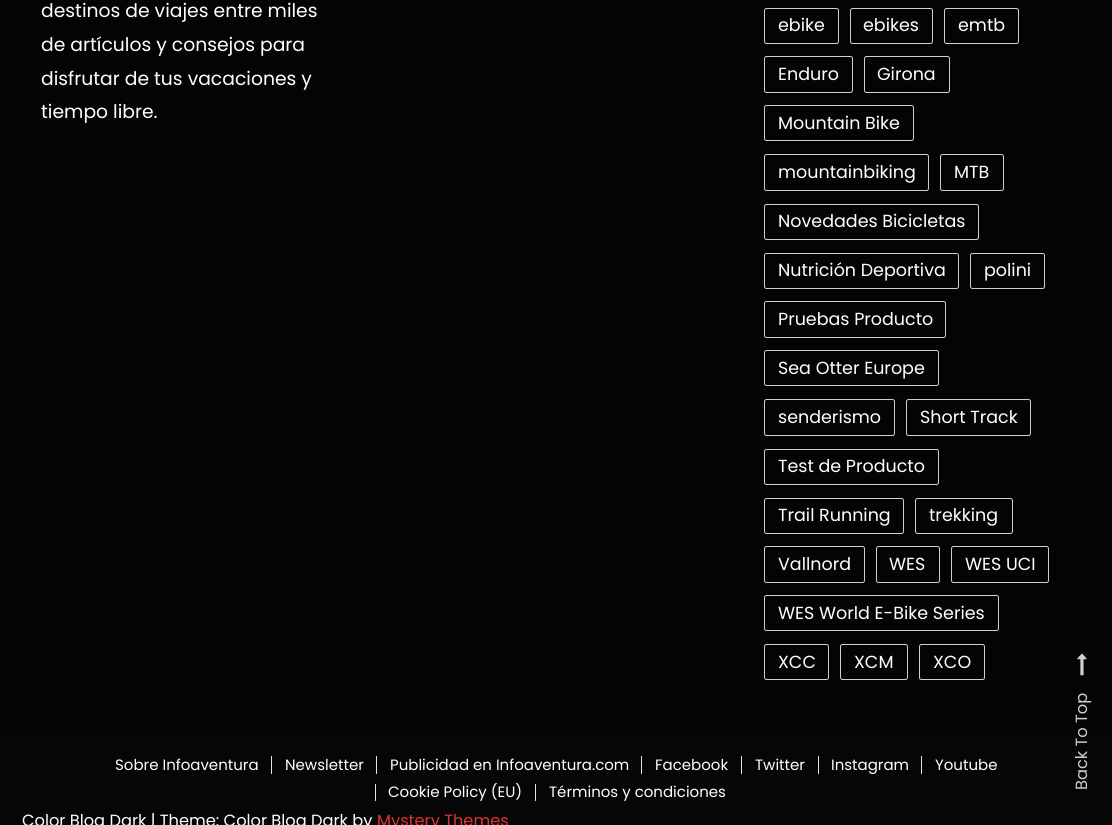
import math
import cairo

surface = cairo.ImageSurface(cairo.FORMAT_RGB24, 1112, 825)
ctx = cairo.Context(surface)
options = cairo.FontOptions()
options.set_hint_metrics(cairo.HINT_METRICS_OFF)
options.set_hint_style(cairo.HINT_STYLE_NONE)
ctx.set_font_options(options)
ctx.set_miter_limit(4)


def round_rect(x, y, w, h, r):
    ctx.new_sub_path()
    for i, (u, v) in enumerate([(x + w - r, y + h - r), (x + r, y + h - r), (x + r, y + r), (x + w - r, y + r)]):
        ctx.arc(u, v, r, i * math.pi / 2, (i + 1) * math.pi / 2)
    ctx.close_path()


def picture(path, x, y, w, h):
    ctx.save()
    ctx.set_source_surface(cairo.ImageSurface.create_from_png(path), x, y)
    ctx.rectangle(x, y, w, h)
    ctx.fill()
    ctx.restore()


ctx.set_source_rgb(0.016, 0.016, 0.016)
ctx.paint()
ctx.select_font_face("Poppins")
ctx.set_font_size(18.75)
ctx.set_source_rgb(1, 1, 1)
ctx.move_to(41, 17)
ctx.show_text("destinos de viajes entre miles")
ctx.move_to(41, 51)
ctx.show_text("de artículos y consejos para")
ctx.move_to(41, 85)
ctx.show_text("disfrutar de tus vacaciones y")
ctx.move_to(41, 118)
ctx.show_text("tiempo libre.")
round_rect(764.5, 8.5, 74, 35, 2)
ctx.set_source_rgb(0.812, 0.812, 0.812)
ctx.set_line_width(1)
ctx.stroke()
ctx.set_font_size(17.5)
ctx.set_source_rgb(1, 1, 1)
ctx.move_to(778, 31)
ctx.show_text("ebike")
round_rect(850.5, 8.5, 82, 35, 2)
ctx.set_source_rgb(0.812, 0.812, 0.812)
ctx.stroke()
ctx.set_source_rgb(1, 1, 1)
ctx.move_to(863, 31)
ctx.show_text("ebikes")
round_rect(944.5, 8.5, 74, 35, 2)
ctx.set_source_rgb(0.812, 0.812, 0.812)
ctx.stroke()
ctx.set_source_rgb(1, 1, 1)
ctx.move_to(958, 31)
ctx.show_text("emtb")
round_rect(764.5, 56.5, 88, 36, 2)
ctx.set_source_rgb(0.812, 0.812, 0.812)
ctx.stroke()
ctx.set_source_rgb(1, 1, 1)
ctx.move_to(778, 80)
ctx.show_text("Enduro")
round_rect(864.5, 56.5, 85, 36, 2)
ctx.set_source_rgb(0.812, 0.812, 0.812)
ctx.stroke()
ctx.set_source_rgb(1, 1, 1)
ctx.move_to(877, 80)
ctx.show_text("Girona")
round_rect(764.5, 105.5, 149, 35, 2)
ctx.set_source_rgb(0.812, 0.812, 0.812)
ctx.stroke()
ctx.set_source_rgb(1, 1, 1)
ctx.move_to(778, 129)
ctx.show_text("Mountain Bike")
round_rect(764.5, 154.5, 164, 36, 2)
ctx.set_source_rgb(0.812, 0.812, 0.812)
ctx.stroke()
ctx.set_source_rgb(1, 1, 1)
ctx.move_to(778, 178)
ctx.show_text("mountainbiking")
round_rect(940.5, 154.5, 63, 36, 2)
ctx.set_source_rgb(0.812, 0.812, 0.812)
ctx.stroke()
ctx.set_source_rgb(1, 1, 1)
ctx.move_to(954, 178)
ctx.show_text("MTB")
round_rect(764.5, 204.5, 214, 35, 2)
ctx.set_source_rgb(0.812, 0.812, 0.812)
ctx.stroke()
ctx.set_source_rgb(1, 1, 1)
ctx.move_to(778, 227)
ctx.show_text("Novedades Bicicletas")
round_rect(764.5, 253.5, 194, 35, 2)
ctx.set_source_rgb(0.812, 0.812, 0.812)
ctx.stroke()
ctx.set_source_rgb(1, 1, 1)
ctx.move_to(778, 276)
ctx.show_text("Nutrición Deportiva")
round_rect(970.5, 253.5, 74, 35, 2)
ctx.set_source_rgb(0.812, 0.812, 0.812)
ctx.stroke()
ctx.set_source_rgb(1, 1, 1)
ctx.move_to(984, 276)
ctx.show_text("polini")
round_rect(764.5, 301.5, 181, 36, 2)
ctx.set_source_rgb(0.812, 0.812, 0.812)
ctx.stroke()
ctx.set_source_rgb(1, 1, 1)
ctx.move_to(778, 325)
ctx.show_text("Pruebas Producto")
round_rect(764.5, 350.5, 174, 35, 2)
ctx.set_source_rgb(0.812, 0.812, 0.812)
ctx.stroke()
ctx.set_source_rgb(1, 1, 1)
ctx.move_to(778, 374)
ctx.show_text("Sea Otter Europe")
round_rect(764.5, 399.5, 130, 36, 2)
ctx.set_source_rgb(0.812, 0.812, 0.812)
ctx.stroke()
ctx.set_source_rgb(1, 1, 1)
ctx.move_to(778, 423)
ctx.show_text("senderismo")
round_rect(906.5, 399.5, 124, 36, 2)
ctx.set_source_rgb(0.812, 0.812, 0.812)
ctx.stroke()
ctx.set_source_rgb(1, 1, 1)
ctx.move_to(920, 423)
ctx.show_text("Short Track")
round_rect(764.5, 449.5, 174, 35, 2)
ctx.set_source_rgb(0.812, 0.812, 0.812)
ctx.stroke()
ctx.set_source_rgb(1, 1, 1)
ctx.move_to(778, 472)
ctx.show_text("Test de Producto")
round_rect(764.5, 498.5, 139, 35, 2)
ctx.set_source_rgb(0.812, 0.812, 0.812)
ctx.stroke()
ctx.set_source_rgb(1, 1, 1)
ctx.move_to(778, 521)
ctx.show_text("Trail Running")
round_rect(915.5, 498.5, 97, 35, 2)
ctx.set_source_rgb(0.812, 0.812, 0.812)
ctx.stroke()
ctx.set_source_rgb(1, 1, 1)
ctx.move_to(929, 521)
ctx.show_text("trekking")
round_rect(764.5, 546.5, 100, 36, 2)
ctx.set_source_rgb(0.812, 0.812, 0.812)
ctx.stroke()
ctx.set_source_rgb(1, 1, 1)
ctx.move_to(778, 570)
ctx.show_text("Vallnord")
round_rect(876.5, 546.5, 63, 36, 2)
ctx.set_source_rgb(0.812, 0.812, 0.812)
ctx.stroke()
ctx.set_source_rgb(1, 1, 1)
ctx.move_to(889, 570)
ctx.show_text("WES")
round_rect(951.5, 546.5, 97, 36, 2)
ctx.set_source_rgb(0.812, 0.812, 0.812)
ctx.stroke()
ctx.set_source_rgb(1, 1, 1)
ctx.move_to(965, 570)
ctx.show_text("WES UCI")
round_rect(764.5, 595.5, 234, 35, 2)
ctx.set_source_rgb(0.812, 0.812, 0.812)
ctx.stroke()
ctx.set_source_rgb(1, 1, 1)
ctx.move_to(778, 619)
ctx.show_text("WES World E-Bike Series")
round_rect(764.5, 644.5, 64, 35, 2)
ctx.set_source_rgb(0.812, 0.812, 0.812)
ctx.stroke()
ctx.set_source_rgb(1, 1, 1)
ctx.move_to(778, 668)
ctx.show_text("XCC")
round_rect(840.5, 644.5, 67, 35, 2)
ctx.set_source_rgb(0.812, 0.812, 0.812)
ctx.stroke()
ctx.set_source_rgb(1, 1, 1)
ctx.move_to(854, 668)
ctx.show_text("XCM")
round_rect(919.5, 644.5, 65, 35, 2)
ctx.set_source_rgb(0.812, 0.812, 0.812)
ctx.stroke()
ctx.set_source_rgb(1, 1, 1)
ctx.move_to(933, 668)
ctx.show_text("XCO")
ctx.set_source_rgb(0.027, 0.027, 0.027)
ctx.rectangle(0, 736, 1112, 89)
ctx.fill()
ctx.set_font_size(15)
ctx.set_source_rgb(1, 1, 1)
ctx.move_to(115, 770)
ctx.show_text("Sobre Infoaventura")
ctx.set_source_rgb(0.882, 0.882, 0.882)
ctx.rectangle(271, 756, 1, 18)
ctx.fill()
ctx.set_source_rgb(1, 1, 1)
ctx.move_to(285, 770)
ctx.show_text("Newsletter")
ctx.set_source_rgb(0.882, 0.882, 0.882)
ctx.rectangle(376, 756, 1, 18)
ctx.fill()
ctx.set_source_rgb(1, 1, 1)
ctx.move_to(390, 770)
ctx.show_text("Publicidad en Infoaventura.com")
ctx.set_source_rgb(0.882, 0.882, 0.882)
ctx.rectangle(641, 756, 1, 18)
ctx.fill()
ctx.set_source_rgb(1, 1, 1)
ctx.move_to(655, 770)
ctx.show_text("Facebook")
ctx.set_source_rgb(0.882, 0.882, 0.882)
ctx.rectangle(741, 756, 1, 18)
ctx.fill()
ctx.set_source_rgb(1, 1, 1)
ctx.move_to(755, 770)
ctx.show_text("Twitter")
ctx.set_source_rgb(0.882, 0.882, 0.882)
ctx.rectangle(818, 756, 1, 18)
ctx.fill()
ctx.set_source_rgb(1, 1, 1)
ctx.move_to(831, 770)
ctx.show_text("Instagram")
ctx.set_source_rgb(0.882, 0.882, 0.882)
ctx.rectangle(921, 756, 1, 18)
ctx.fill()
ctx.set_source_rgb(1, 1, 1)
ctx.move_to(935, 770)
ctx.show_text("Youtube")
ctx.set_source_rgb(0.882, 0.882, 0.882)
ctx.rectangle(375, 784, 1, 17)
ctx.fill()
ctx.set_source_rgb(1, 1, 1)
ctx.move_to(388, 797)
ctx.show_text("Cookie Policy (EU)")
ctx.set_source_rgb(0.882, 0.882, 0.882)
ctx.rectangle(535, 784, 1, 17)
ctx.fill()
ctx.set_source_rgb(1, 1, 1)
ctx.move_to(549, 797)
ctx.show_text("Términos y condiciones")
ctx.set_font_size(16.25)
ctx.move_to(22, 826)
ctx.show_text("Color Blog Dark | Theme: Color Blog Dark by")
ctx.set_source_rgb(0.867, 0.2, 0.2)
ctx.move_to(377, 826)
ctx.show_text("Mystery Themes")
picture("img1.png", 1077, 653, 10, 23)
ctx.set_source_rgb(0.812, 0.812, 0.812)
ctx.save()
ctx.translate(1087, 790)
ctx.rotate(-90 * math.pi / 180)
ctx.move_to(0, 0)
ctx.show_text("Back To Top")
ctx.restore()
surface.write_to_png("page.png")
